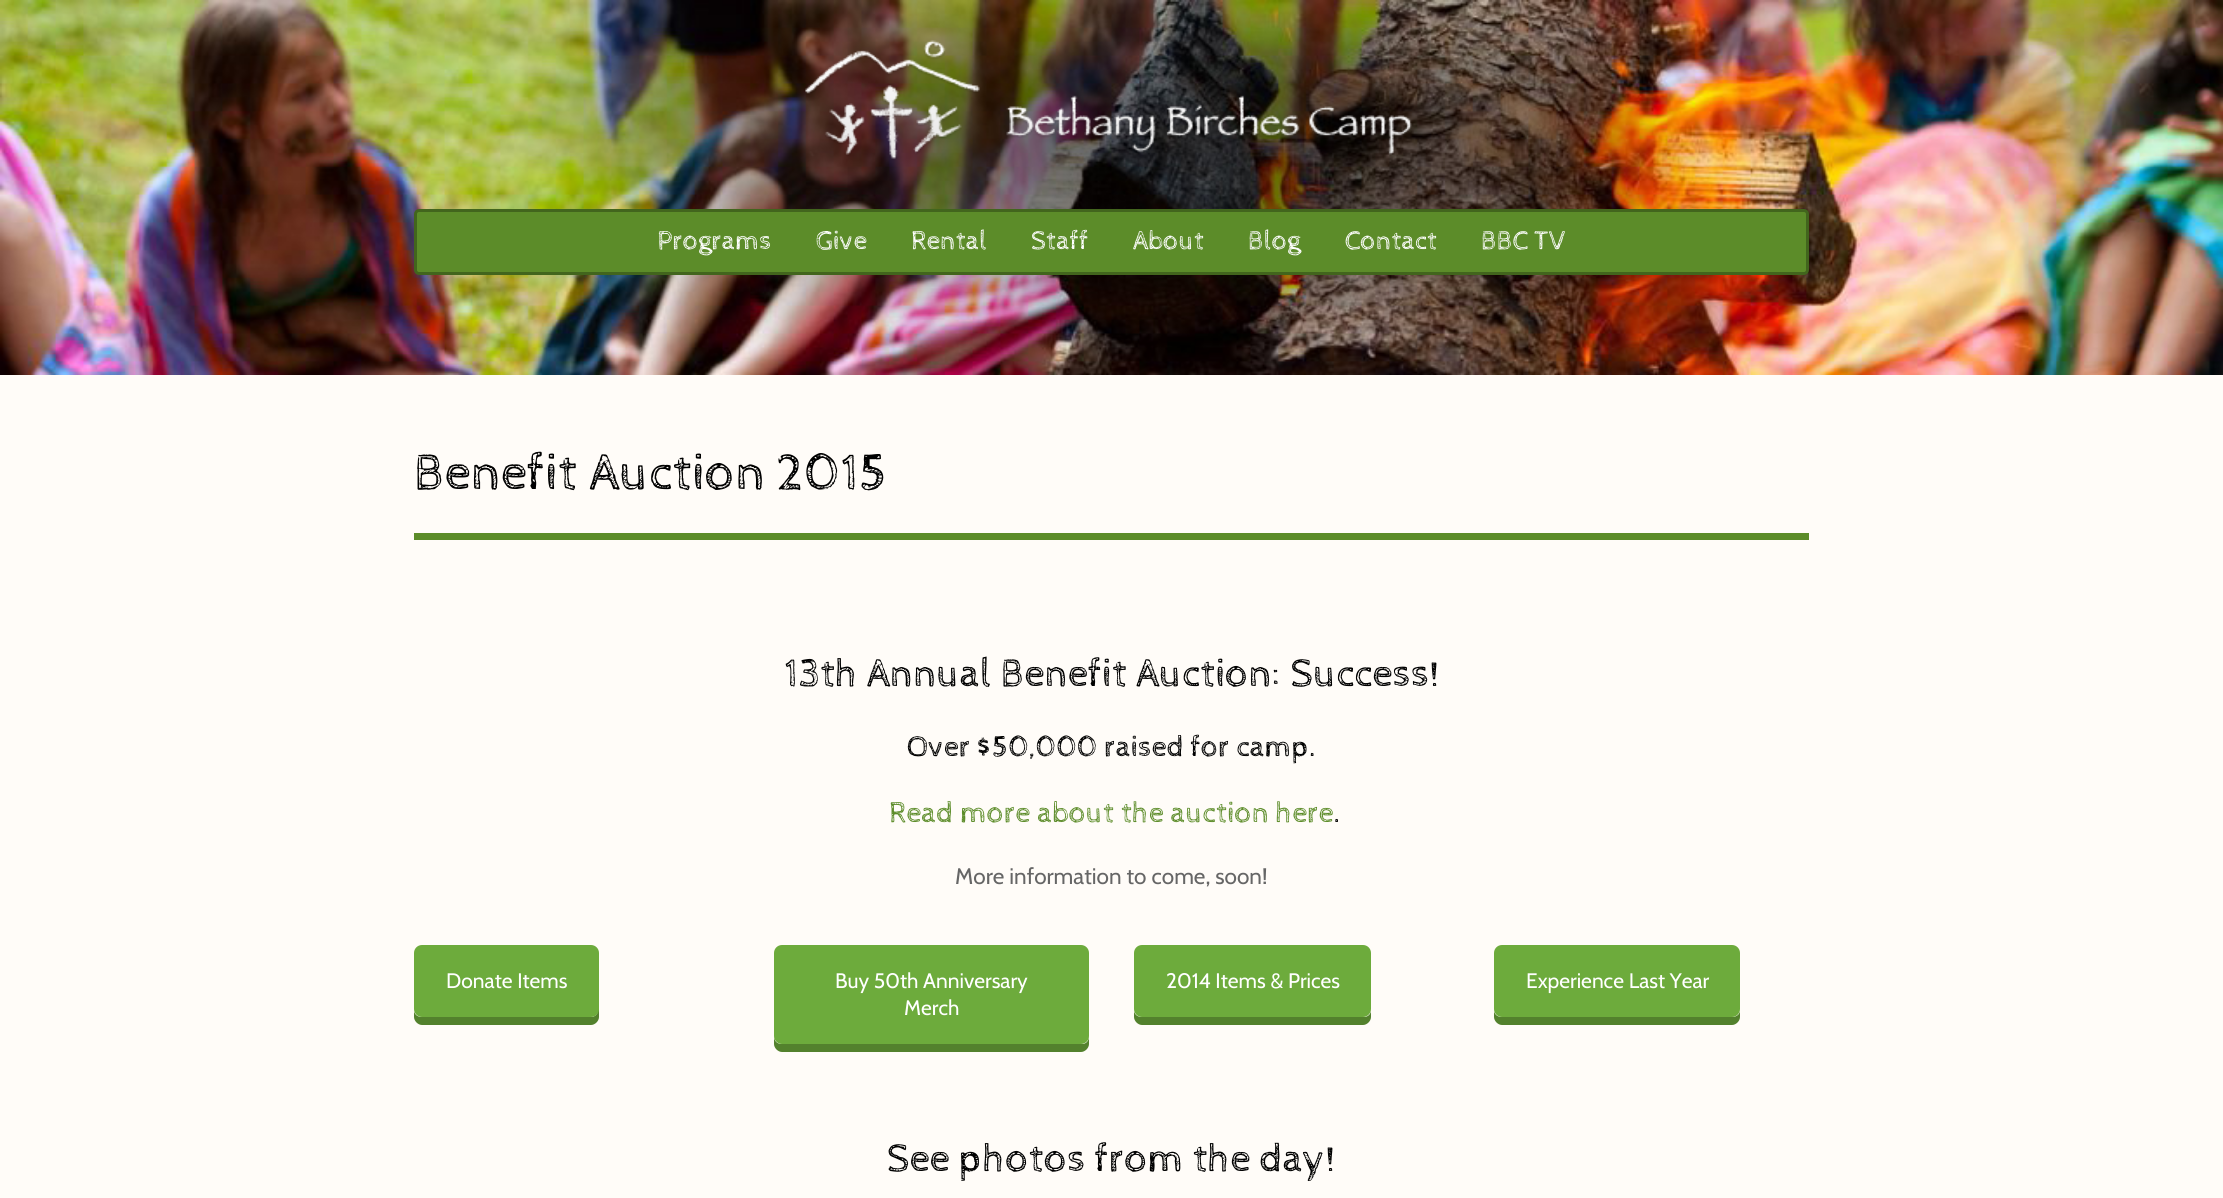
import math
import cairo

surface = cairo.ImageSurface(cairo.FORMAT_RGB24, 2223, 1198)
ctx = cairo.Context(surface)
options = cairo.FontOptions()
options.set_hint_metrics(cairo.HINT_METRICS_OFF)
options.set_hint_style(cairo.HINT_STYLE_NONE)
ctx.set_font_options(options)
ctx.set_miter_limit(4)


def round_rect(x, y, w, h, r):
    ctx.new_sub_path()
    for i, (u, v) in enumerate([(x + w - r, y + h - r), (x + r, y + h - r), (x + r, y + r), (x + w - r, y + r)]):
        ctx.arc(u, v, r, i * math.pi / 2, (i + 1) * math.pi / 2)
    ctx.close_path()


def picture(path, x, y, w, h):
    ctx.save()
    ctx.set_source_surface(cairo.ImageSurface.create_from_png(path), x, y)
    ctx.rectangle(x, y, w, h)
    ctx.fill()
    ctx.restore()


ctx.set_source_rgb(1, 0.988, 0.969)
ctx.paint()
picture("img1.png", 0, 0, 2223, 375)
picture("img2.png", 805, 40, 607, 119)
ctx.set_source_rgb(0.361, 0.549, 0.161)
round_rect(415.5, 210.5, 1392, 63, 3.5)
ctx.fill_preserve()
ctx.set_source_rgb(0.259, 0.396, 0.114)
ctx.set_line_width(3)
ctx.stroke()
ctx.select_font_face("Cabin Sketch")
ctx.set_font_size(27)
ctx.set_source_rgb(1, 1, 1)
ctx.move_to(657, 249)
ctx.show_text("Programs")
ctx.move_to(816, 249)
ctx.show_text("Give")
ctx.move_to(911, 249)
ctx.show_text("Rental")
ctx.move_to(1031, 249)
ctx.show_text("Staff")
ctx.move_to(1133, 249)
ctx.show_text("About")
ctx.move_to(1248, 249)
ctx.show_text("Blog")
ctx.move_to(1345, 249)
ctx.show_text("Contact")
ctx.move_to(1481, 249)
ctx.show_text("BBC TV")
ctx.set_source_rgb(0.361, 0.549, 0.161)
ctx.rectangle(414, 533, 1395, 7)
ctx.fill()
ctx.set_font_size(52.5)
ctx.set_source_rgb(0, 0, 0)
ctx.move_to(414, 489)
ctx.show_text("Benefit Auction 2015")
ctx.set_font_size(40.5)
ctx.move_to(784, 686)
ctx.show_text("13th Annual Benefit Auction: Success!")
ctx.set_font_size(30)
ctx.move_to(907, 756)
ctx.show_text("Over $50,000 raised for camp.")
ctx.set_source_rgb(0.361, 0.549, 0.161)
ctx.move_to(889, 822)
ctx.show_text("Read more about the auction here")
ctx.set_source_rgb(0, 0, 0)
ctx.move_to(1334, 822)
ctx.show_text(".")
ctx.select_font_face("Cabin")
ctx.set_font_size(22.5)
ctx.set_source_rgb(0.4, 0.4, 0.4)
ctx.move_to(955, 884)
ctx.show_text("More information to come, soon!")
ctx.set_source_rgb(0.325, 0.506, 0.176)
ctx.new_path()
ctx.move_to(414, 1010)
ctx.line_to(414, 1017)
ctx.curve_to(414, 1021, 418, 1025, 422, 1025)
ctx.line_to(591, 1025)
ctx.curve_to(595, 1025, 599, 1021, 599, 1017)
ctx.line_to(599, 961)
ctx.line_to(598, 958)
ctx.line_to(598, 1010)
ctx.curve_to(598, 1014, 595, 1017, 591, 1017)
ctx.line_to(422, 1017)
ctx.curve_to(417, 1017, 414, 1014, 414, 1010)
ctx.close_path()
ctx.fill()
ctx.set_source_rgb(0.427, 0.671, 0.235)
round_rect(414, 945, 185, 72, 8)
ctx.fill()
ctx.set_font_size(21)
ctx.set_source_rgb(1, 1, 1)
ctx.move_to(446, 988)
ctx.show_text("Donate Items")
ctx.set_source_rgb(0.325, 0.506, 0.176)
ctx.new_path()
ctx.move_to(774, 1036)
ctx.line_to(774, 1044)
ctx.curve_to(774, 1048, 778, 1052, 782, 1052)
ctx.line_to(1081, 1052)
ctx.curve_to(1085, 1052, 1089, 1048, 1089, 1044)
ctx.line_to(1089, 1036)
ctx.curve_to(1089, 1041, 1086, 1044, 1082, 1044)
ctx.line_to(782, 1044)
ctx.curve_to(777, 1044, 774, 1041, 774, 1036)
ctx.close_path()
ctx.fill()
ctx.set_source_rgb(0.427, 0.671, 0.235)
round_rect(774, 945, 315, 99, 8)
ctx.fill()
ctx.set_source_rgb(1, 1, 1)
ctx.move_to(835, 988)
ctx.show_text("Buy 50th Anniversary")
ctx.move_to(904, 1015)
ctx.show_text("Merch")
ctx.set_source_rgb(0.325, 0.506, 0.176)
ctx.new_path()
ctx.move_to(1134, 1010)
ctx.line_to(1134, 1017)
ctx.curve_to(1134, 1021, 1138, 1025, 1142, 1025)
ctx.line_to(1363, 1025)
ctx.curve_to(1367, 1025, 1371, 1021, 1371, 1017)
ctx.line_to(1371, 1010)
ctx.curve_to(1371, 1014, 1368, 1017, 1364, 1017)
ctx.line_to(1142, 1017)
ctx.curve_to(1137, 1017, 1134, 1014, 1134, 1010)
ctx.close_path()
ctx.fill()
ctx.set_source_rgb(0.427, 0.671, 0.235)
round_rect(1134, 945, 237, 72, 8)
ctx.fill()
ctx.set_source_rgb(1, 1, 1)
ctx.move_to(1166, 988)
ctx.show_text("2014 Items & Prices")
ctx.set_source_rgb(0.325, 0.506, 0.176)
ctx.new_path()
ctx.move_to(1494, 1010)
ctx.line_to(1494, 1017)
ctx.curve_to(1494, 1021, 1498, 1025, 1502, 1025)
ctx.line_to(1732, 1025)
ctx.curve_to(1736, 1025, 1740, 1021, 1740, 1017)
ctx.line_to(1740, 1010)
ctx.curve_to(1740, 1014, 1737, 1017, 1732, 1017)
ctx.line_to(1502, 1017)
ctx.curve_to(1497, 1017, 1494, 1014, 1494, 1010)
ctx.close_path()
ctx.fill()
ctx.set_source_rgb(0.427, 0.671, 0.235)
round_rect(1494, 945, 246, 72, 8)
ctx.fill()
ctx.set_source_rgb(1, 1, 1)
ctx.move_to(1526, 988)
ctx.show_text("Experience Last Year")
ctx.select_font_face("Cabin Sketch")
ctx.set_font_size(40.5)
ctx.set_source_rgb(0, 0, 0)
ctx.move_to(887, 1171)
ctx.show_text("See photos from the day!")
surface.write_to_png("page.png")
